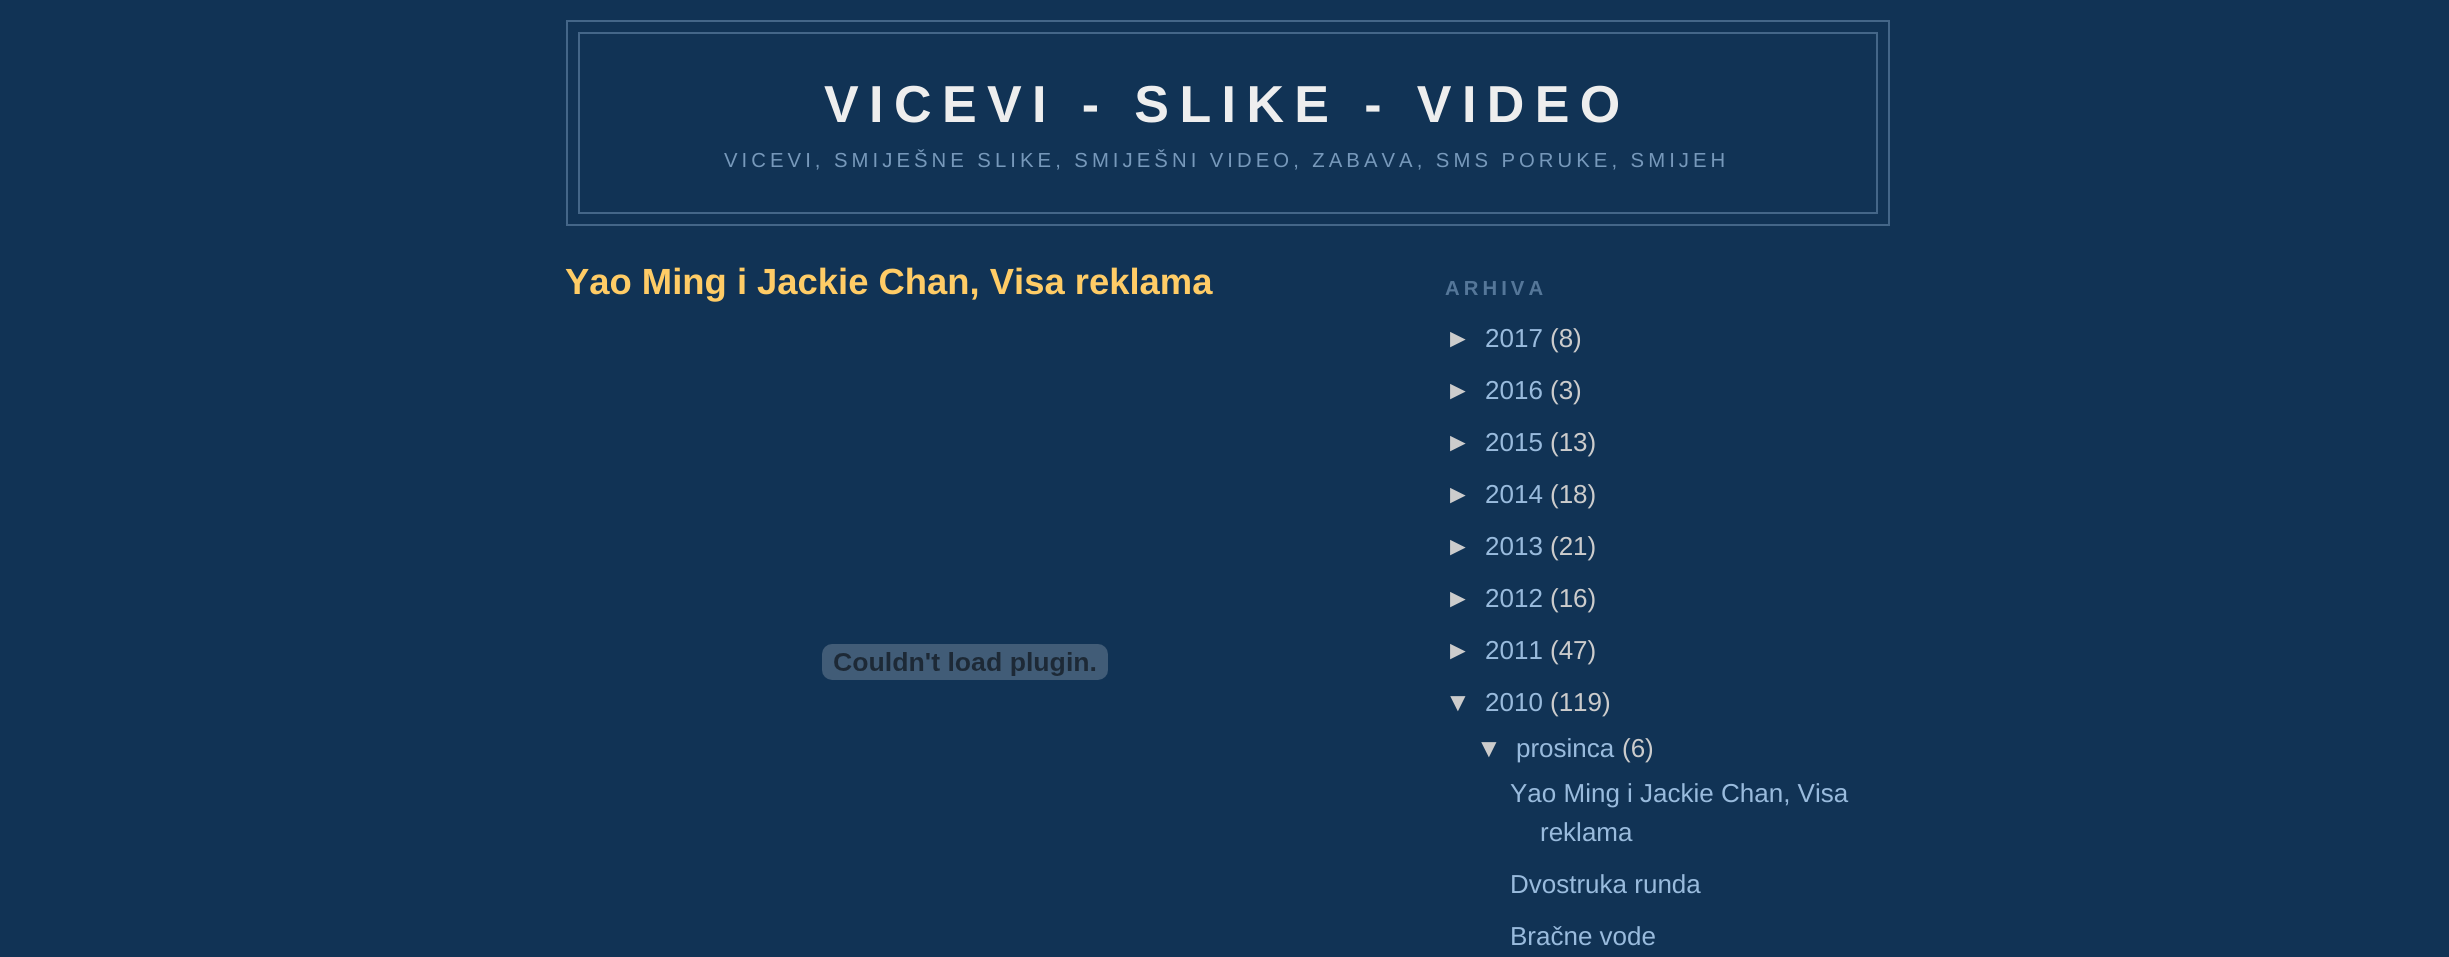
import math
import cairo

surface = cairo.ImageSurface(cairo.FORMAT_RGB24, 2449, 957)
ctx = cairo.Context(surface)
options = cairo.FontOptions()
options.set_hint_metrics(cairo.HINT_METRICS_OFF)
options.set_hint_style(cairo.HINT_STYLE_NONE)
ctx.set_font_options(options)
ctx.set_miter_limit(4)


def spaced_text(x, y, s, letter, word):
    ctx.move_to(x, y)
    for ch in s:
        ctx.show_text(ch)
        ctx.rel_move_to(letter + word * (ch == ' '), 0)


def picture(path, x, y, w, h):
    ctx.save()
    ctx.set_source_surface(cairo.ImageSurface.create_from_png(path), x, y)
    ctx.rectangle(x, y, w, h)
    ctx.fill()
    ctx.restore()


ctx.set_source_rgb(0.067, 0.2, 0.333)
ctx.paint()
ctx.rectangle(567, 21, 1322, 204)
ctx.set_source_rgb(0.267, 0.4, 0.533)
ctx.stroke()
ctx.rectangle(579, 33, 1298, 180)
ctx.stroke()
ctx.select_font_face("Liberation Sans", cairo.FONT_SLANT_NORMAL, cairo.FONT_WEIGHT_BOLD)
ctx.set_font_size(52)
ctx.set_source_rgb(0.933, 0.933, 0.933)
spaced_text(824, 122, "VICEVI - SLIKE - VIDEO", 10.4, 0)
ctx.select_font_face("Liberation Sans")
ctx.set_font_size(20.3)
ctx.set_source_rgb(0.467, 0.6, 0.733)
spaced_text(724, 167, "VICEVI, SMIJEŠNE SLIKE, SMIJEŠNI VIDEO, ZABAVA, SMS PORUKE, SMIJEH", 4.05, -0.25)
ctx.select_font_face("Liberation Sans", cairo.FONT_SLANT_NORMAL, cairo.FONT_WEIGHT_BOLD)
ctx.set_font_size(36.4)
ctx.set_source_rgb(1, 0.8, 0.4)
ctx.move_to(565, 294)
ctx.show_text("Yao Ming i Jackie Chan, Visa reklama")
picture("img1.png", 822, 644, 286, 36)
ctx.set_font_size(20.3)
ctx.set_source_rgb(0.333, 0.467, 0.6)
spaced_text(1445, 295, "ARHIVA", 4.05, 0)
ctx.select_font_face("Liberation Sans")
ctx.set_font_size(26)
ctx.set_source_rgb(0.8, 0.8, 0.8)
ctx.move_to(1445, 347)
ctx.show_text("►")
ctx.set_source_rgb(0.6, 0.733, 0.867)
ctx.move_to(1485, 347)
ctx.show_text("2017")
ctx.set_source_rgb(0.8, 0.8, 0.8)
ctx.move_to(1550, 347)
ctx.show_text("(8)")
ctx.move_to(1445, 399)
ctx.show_text("►")
ctx.set_source_rgb(0.6, 0.733, 0.867)
ctx.move_to(1485, 399)
ctx.show_text("2016")
ctx.set_source_rgb(0.8, 0.8, 0.8)
ctx.move_to(1550, 399)
ctx.show_text("(3)")
ctx.move_to(1445, 451)
ctx.show_text("►")
ctx.set_source_rgb(0.6, 0.733, 0.867)
ctx.move_to(1485, 451)
ctx.show_text("2015")
ctx.set_source_rgb(0.8, 0.8, 0.8)
ctx.move_to(1550, 451)
ctx.show_text("(13)")
ctx.move_to(1445, 503)
ctx.show_text("►")
ctx.set_source_rgb(0.6, 0.733, 0.867)
ctx.move_to(1485, 503)
ctx.show_text("2014")
ctx.set_source_rgb(0.8, 0.8, 0.8)
ctx.move_to(1550, 503)
ctx.show_text("(18)")
ctx.move_to(1445, 555)
ctx.show_text("►")
ctx.set_source_rgb(0.6, 0.733, 0.867)
ctx.move_to(1485, 555)
ctx.show_text("2013")
ctx.set_source_rgb(0.8, 0.8, 0.8)
ctx.move_to(1550, 555)
ctx.show_text("(21)")
ctx.move_to(1445, 607)
ctx.show_text("►")
ctx.set_source_rgb(0.6, 0.733, 0.867)
ctx.move_to(1485, 607)
ctx.show_text("2012")
ctx.set_source_rgb(0.8, 0.8, 0.8)
ctx.move_to(1550, 607)
ctx.show_text("(16)")
ctx.move_to(1445, 659)
ctx.show_text("►")
ctx.set_source_rgb(0.6, 0.733, 0.867)
ctx.move_to(1485, 659)
ctx.show_text("2011")
ctx.set_source_rgb(0.8, 0.8, 0.8)
ctx.move_to(1550, 659)
ctx.show_text("(47)")
ctx.move_to(1445, 711)
ctx.show_text("▼")
ctx.set_source_rgb(0.6, 0.733, 0.867)
ctx.move_to(1485, 711)
ctx.show_text("2010")
ctx.set_source_rgb(0.8, 0.8, 0.8)
ctx.move_to(1550, 711)
ctx.show_text("(119)")
ctx.move_to(1476, 757)
ctx.show_text("▼")
ctx.set_source_rgb(0.6, 0.733, 0.867)
ctx.move_to(1516, 757)
ctx.show_text("prosinca")
ctx.set_source_rgb(0.8, 0.8, 0.8)
ctx.move_to(1622, 757)
ctx.show_text("(6)")
ctx.set_source_rgb(0.6, 0.733, 0.867)
ctx.move_to(1510, 802)
ctx.show_text("Yao Ming i Jackie Chan, Visa")
ctx.move_to(1540, 841)
ctx.show_text("reklama")
ctx.move_to(1510, 893)
ctx.show_text("Dvostruka runda")
ctx.move_to(1510, 945)
ctx.show_text("Bračne vode")
surface.write_to_png("page.png")
